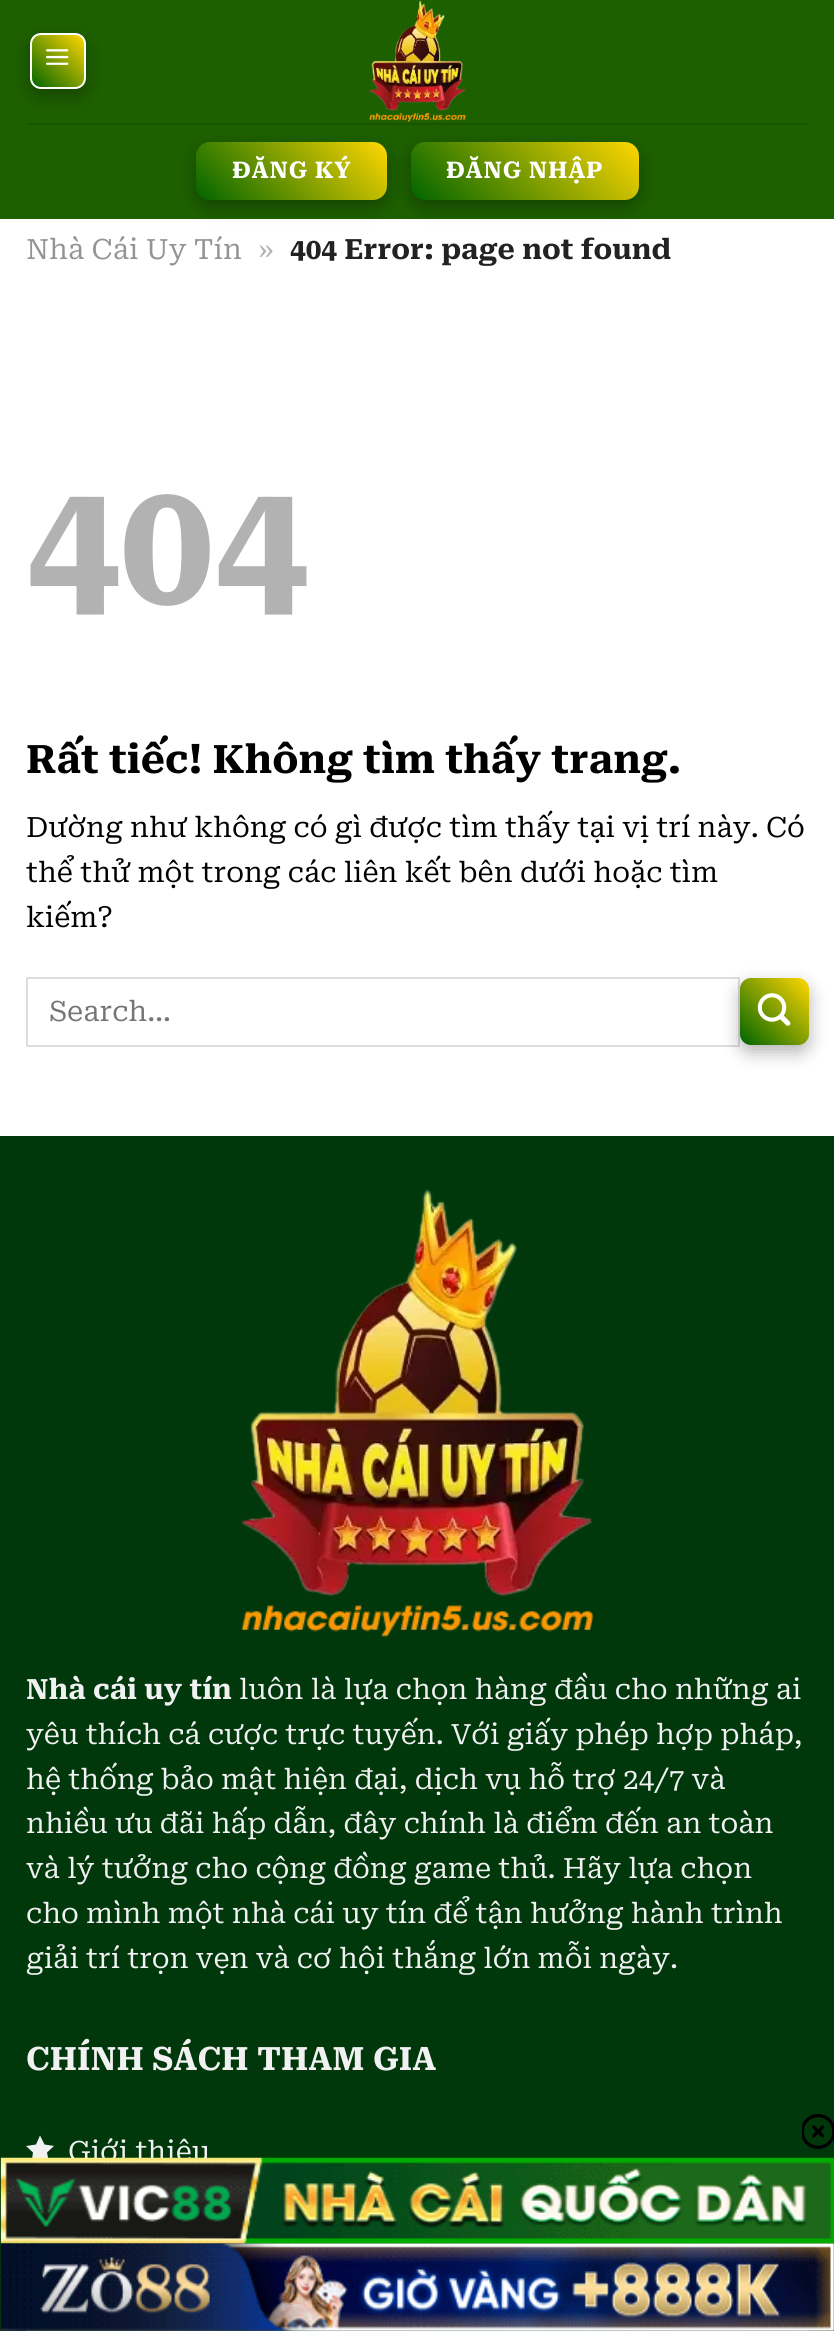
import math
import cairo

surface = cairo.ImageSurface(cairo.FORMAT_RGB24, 834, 2331)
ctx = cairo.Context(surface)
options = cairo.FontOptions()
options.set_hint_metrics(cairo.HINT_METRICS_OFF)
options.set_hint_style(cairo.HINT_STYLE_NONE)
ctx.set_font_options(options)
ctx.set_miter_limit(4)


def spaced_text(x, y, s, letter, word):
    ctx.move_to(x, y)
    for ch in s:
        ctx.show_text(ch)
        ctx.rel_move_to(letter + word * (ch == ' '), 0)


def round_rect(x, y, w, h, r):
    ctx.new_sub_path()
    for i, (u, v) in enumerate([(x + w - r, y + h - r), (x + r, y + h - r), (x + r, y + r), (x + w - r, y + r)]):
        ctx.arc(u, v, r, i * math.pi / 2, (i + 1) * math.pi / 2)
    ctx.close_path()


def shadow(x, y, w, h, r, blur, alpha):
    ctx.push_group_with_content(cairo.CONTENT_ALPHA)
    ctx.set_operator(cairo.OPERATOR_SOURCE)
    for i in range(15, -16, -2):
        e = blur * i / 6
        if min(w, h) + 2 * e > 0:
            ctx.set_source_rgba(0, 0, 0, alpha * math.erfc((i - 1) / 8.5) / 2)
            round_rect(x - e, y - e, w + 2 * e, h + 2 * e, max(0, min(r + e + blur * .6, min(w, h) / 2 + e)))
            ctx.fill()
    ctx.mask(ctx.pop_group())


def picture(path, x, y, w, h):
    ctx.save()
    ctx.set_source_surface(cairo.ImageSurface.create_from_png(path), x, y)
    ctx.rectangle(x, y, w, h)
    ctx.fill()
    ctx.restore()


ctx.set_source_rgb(1, 1, 1)
ctx.paint()
ctx.set_source_rgb(0.114, 0.376, 0)
ctx.rectangle(0, 0, 834, 219)
ctx.fill()
ctx.set_source_rgb(0, 0, 0)
shadow(30, 40, 56, 56, 11, 9, 0.3)
ctx.save()
round_rect(30, 33, 56, 56, 11)
ctx.clip()
gradient = cairo.LinearGradient(32, 88, 84, 35)
gradient.add_color_stop_rgba(0, 0, 0.392, 0, 1)
gradient.add_color_stop_rgba(1, 1, 0.843, 0, 1)
ctx.set_source(gradient)
ctx.rectangle(32, 35, 52, 53)
ctx.fill()
ctx.restore()
round_rect(31, 34, 54, 54, 10)
ctx.set_source_rgb(1, 1, 1)
ctx.stroke()
picture("img1.png", 46, 49, 23, 16)
ctx.set_source_rgb(0, 0, 0)
shadow(196, 149, 191, 58, 14, 9, 0.3)
gradient = cairo.LinearGradient(229, 233, 354, 109)
gradient.add_color_stop_rgba(0, 0, 0.392, 0, 1)
gradient.add_color_stop_rgba(1, 1, 0.843, 0, 1)
ctx.set_source(gradient)
round_rect(196, 142, 191, 58, 14)
ctx.fill()
ctx.set_source_rgb(0, 0, 0)
shadow(411, 149, 228, 58, 14, 9, 0.3)
picture("img2.png", 369, 0, 97, 122)
ctx.set_source_rgb(0.102, 0.337, 0)
ctx.rectangle(26, 123, 783, 2)
ctx.fill()
ctx.select_font_face("Roboto Serif", cairo.FONT_SLANT_NORMAL, cairo.FONT_WEIGHT_BOLD)
ctx.set_font_size(23)
ctx.set_source_rgb(1, 1, 1)
spaced_text(232, 178, "ĐĂNG KÝ", 0.75, 0)
gradient = cairo.LinearGradient(454, 242, 596, 99)
gradient.add_color_stop_rgba(0, 0, 0.392, 0, 1)
gradient.add_color_stop_rgba(1, 1, 0.843, 0, 1)
ctx.set_source(gradient)
round_rect(411, 142, 228, 58, 14)
ctx.fill()
ctx.set_source_rgb(1, 1, 1)
spaced_text(446, 178, "ĐĂNG NHẬP", 0.75, 0)
ctx.select_font_face("Roboto Serif")
ctx.set_font_size(28)
ctx.set_source_rgb(0.58, 0.58, 0.58)
ctx.move_to(26, 259)
ctx.show_text("Nhà Cái Uy Tín")
ctx.set_source_rgb(0.698, 0.698, 0.698)
ctx.move_to(258, 259)
ctx.show_text("»")
ctx.select_font_face("Roboto Serif", cairo.FONT_SLANT_NORMAL, cairo.FONT_WEIGHT_BOLD)
ctx.set_source_rgb(0.133, 0.133, 0.133)
ctx.move_to(290, 259)
ctx.show_text("404 Error: page not found")
ctx.set_font_size(168)
ctx.set_source_rgb(0.698, 0.698, 0.698)
ctx.move_to(26, 604)
ctx.show_text("404")
ctx.set_font_size(39.25)
ctx.set_source_rgb(0, 0, 0)
ctx.move_to(26, 773)
ctx.show_text("Rất tiếc! Không tìm thấy trang.")
ctx.select_font_face("Roboto Serif")
ctx.set_font_size(28)
ctx.move_to(26, 837)
ctx.show_text("Dường như không có gì được tìm thấy tại vị trí này. Có")
ctx.move_to(26, 882)
ctx.show_text("thể thử một trong các liên kết bên dưới hoặc tìm")
ctx.move_to(26, 927)
ctx.show_text("kiếm?")
ctx.rectangle(27, 978, 712, 68)
ctx.set_source_rgb(0.867, 0.867, 0.867)
ctx.stroke()
ctx.set_source_rgb(0.459, 0.459, 0.459)
ctx.move_to(49, 1021)
ctx.show_text("Search…")
ctx.set_source_rgb(0, 0, 0)
shadow(740, 985, 69, 67, 11, 9, 0.3)
gradient = cairo.LinearGradient(741, 1045, 808, 978)
gradient.add_color_stop_rgba(0, 0, 0.392, 0, 1)
gradient.add_color_stop_rgba(1, 1, 0.843, 0, 1)
ctx.set_source(gradient)
round_rect(740, 978, 69, 67, 11)
ctx.fill()
picture("img3.png", 757, 993, 34, 33)
ctx.set_source_rgb(0, 0.22, 0.043)
ctx.rectangle(0, 1136, 834, 1195)
ctx.fill()
picture("img4.png", 241, 1189, 353, 449)
ctx.select_font_face("Roboto Serif", cairo.FONT_SLANT_NORMAL, cairo.FONT_WEIGHT_BOLD)
ctx.set_source_rgb(0.945, 0.945, 0.945)
ctx.move_to(26, 1699)
ctx.show_text("Nhà cái uy tín")
ctx.select_font_face("Roboto Serif")
ctx.move_to(239, 1699)
ctx.show_text("luôn là lựa chọn hàng đầu cho những ai")
ctx.move_to(26, 1744)
ctx.show_text("yêu thích cá cược trực tuyến. Với giấy phép hợp pháp,")
ctx.move_to(26, 1789)
ctx.show_text("hệ thống bảo mật hiện đại, dịch vụ hỗ trợ 24/7 và")
ctx.move_to(26, 1833)
ctx.show_text("nhiều ưu đãi hấp dẫn, đây chính là điểm đến an toàn")
ctx.move_to(26, 1878)
ctx.show_text("và lý tưởng cho cộng đồng game thủ. Hãy lựa chọn")
ctx.move_to(26, 1923)
ctx.show_text("cho mình một nhà cái uy tín để tận hưởng hành trình")
ctx.move_to(26, 1968)
ctx.show_text("giải trí trọn vẹn và cơ hội thắng lớn mỗi ngày.")
ctx.select_font_face("Roboto Serif", cairo.FONT_SLANT_NORMAL, cairo.FONT_WEIGHT_BOLD)
ctx.set_font_size(32.25)
ctx.move_to(26, 2070)
ctx.show_text("CHÍNH SÁCH THAM GIA")
ctx.new_path()
ctx.move_to(54, 2146)
ctx.line_to(44.5, 2144.5)
ctx.line_to(40, 2135.5)
ctx.line_to(36, 2144.5)
ctx.line_to(26, 2146)
ctx.line_to(33, 2152.5)
ctx.line_to(31.5, 2162.5)
ctx.line_to(40, 2158)
ctx.line_to(49, 2162.5)
ctx.line_to(47, 2152.5)
ctx.close_path()
ctx.fill()
ctx.select_font_face("Roboto Serif")
ctx.set_font_size(28)
ctx.move_to(68, 2161)
ctx.show_text("Giới thiệu")
ctx.set_source_rgb(0.2, 0.376, 0.235)
ctx.rectangle(26, 2330, 783, 1)
ctx.fill()
picture("img5.png", 802, 2114, 32, 35)
picture("img6.png", 0, 2157, 834, 87)
picture("img7.png", 0, 2243, 834, 88)
surface.write_to_png("page.png")
